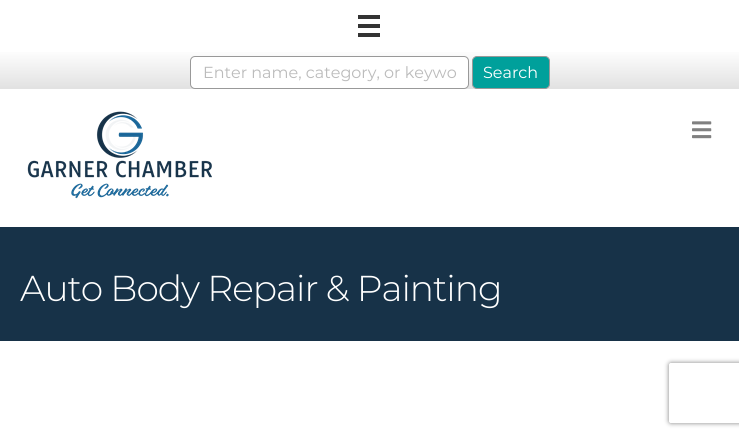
import math
import cairo

surface = cairo.ImageSurface(cairo.FORMAT_RGB24, 739, 437)
ctx = cairo.Context(surface)
options = cairo.FontOptions()
options.set_hint_metrics(cairo.HINT_METRICS_OFF)
options.set_hint_style(cairo.HINT_STYLE_NONE)
ctx.set_font_options(options)
ctx.set_miter_limit(4)


def spaced_text(x, y, s, letter, word):
    ctx.move_to(x, y)
    for ch in s:
        ctx.show_text(ch)
        ctx.rel_move_to(letter + word * (ch == ' '), 0)


def round_rect(x, y, w, h, r):
    ctx.new_sub_path()
    for i, (u, v) in enumerate([(x + w - r, y + h - r), (x + r, y + h - r), (x + r, y + r), (x + w - r, y + r)]):
        ctx.arc(u, v, r, i * math.pi / 2, (i + 1) * math.pi / 2)
    ctx.close_path()


def shadow(x, y, w, h, r, blur, alpha):
    ctx.push_group_with_content(cairo.CONTENT_ALPHA)
    ctx.set_operator(cairo.OPERATOR_SOURCE)
    for i in range(15, -16, -2):
        e = blur * i / 6
        if min(w, h) + 2 * e > 0:
            ctx.set_source_rgba(0, 0, 0, alpha * math.erfc((i - 1) / 8.5) / 2)
            round_rect(x - e, y - e, w + 2 * e, h + 2 * e, max(0, min(r + e + blur * .6, min(w, h) / 2 + e)))
            ctx.fill()
    ctx.mask(ctx.pop_group())


def picture(path, x, y, w, h):
    ctx.save()
    ctx.set_source_surface(cairo.ImageSurface.create_from_png(path), x, y)
    ctx.rectangle(x, y, w, h)
    ctx.fill()
    ctx.restore()


ctx.set_source_rgb(1, 1, 1)
ctx.paint()
gradient = cairo.LinearGradient(370, 89, 370, 0)
gradient.add_color_stop_rgba(0.01, 0.886, 0.886, 0.886, 1)
gradient.add_color_stop_rgba(0.45, 1, 1, 1, 1)
ctx.set_source(gradient)
ctx.rectangle(0, 52, 739, 37)
ctx.fill()
ctx.set_source_rgb(0.2, 0.2, 0.2)
ctx.rectangle(358, 15, 22, 4)
ctx.fill()
ctx.rectangle(358, 24, 22, 4)
ctx.fill()
ctx.rectangle(358, 33, 22, 4)
ctx.fill()
ctx.set_source_rgb(1, 1, 1)
round_rect(190.5, 56.5, 278, 32, 4.5)
ctx.fill_preserve()
ctx.set_source_rgb(0.6, 0.6, 0.6)
ctx.set_line_width(1)
ctx.stroke()
ctx.select_font_face("Montserrat")
ctx.set_font_size(16)
ctx.set_source_rgb(0.733, 0.733, 0.733)
ctx.move_to(203, 78)
ctx.show_text("Enter name, category, or keywo")
ctx.set_source_rgb(0, 0.627, 0.608)
round_rect(472.5, 56.5, 77, 32, 4.5)
ctx.fill_preserve()
ctx.set_source_rgb(0.6, 0.6, 0.6)
ctx.stroke()
ctx.set_source_rgb(1, 1, 1)
ctx.move_to(483, 78)
ctx.show_text("Search")
picture("img1.png", 27, 111, 185, 88)
picture("img2.png", 692, 121, 20, 18)
ctx.set_source_rgb(0.09, 0.196, 0.282)
ctx.rectangle(0, 227, 739, 114)
ctx.fill()
ctx.select_font_face("Montserrat Light")
ctx.set_font_size(36)
ctx.set_source_rgb(1, 1, 1)
spaced_text(20, 301, "Auto Body Repair & Painting", -1, 0)
ctx.save()
ctx.set_fill_rule(cairo.FILL_RULE_EVEN_ODD)
ctx.new_path()
ctx.move_to(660, 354)
ctx.line_to(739, 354)
ctx.line_to(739, 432)
ctx.line_to(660, 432)
ctx.close_path()
ctx.move_to(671, 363)
ctx.line_to(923, 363)
ctx.curve_to(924, 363, 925, 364, 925, 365)
ctx.line_to(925, 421)
ctx.curve_to(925, 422, 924, 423, 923, 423)
ctx.line_to(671, 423)
ctx.curve_to(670, 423, 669, 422, 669, 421)
ctx.line_to(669, 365)
ctx.curve_to(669, 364, 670, 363, 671, 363)
ctx.close_path()
ctx.clip()
ctx.set_source_rgb(0.502, 0.502, 0.502)
shadow(669, 363, 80, 60, 2, 2.5, 1)
ctx.restore()
surface.write_to_png("page.png")
